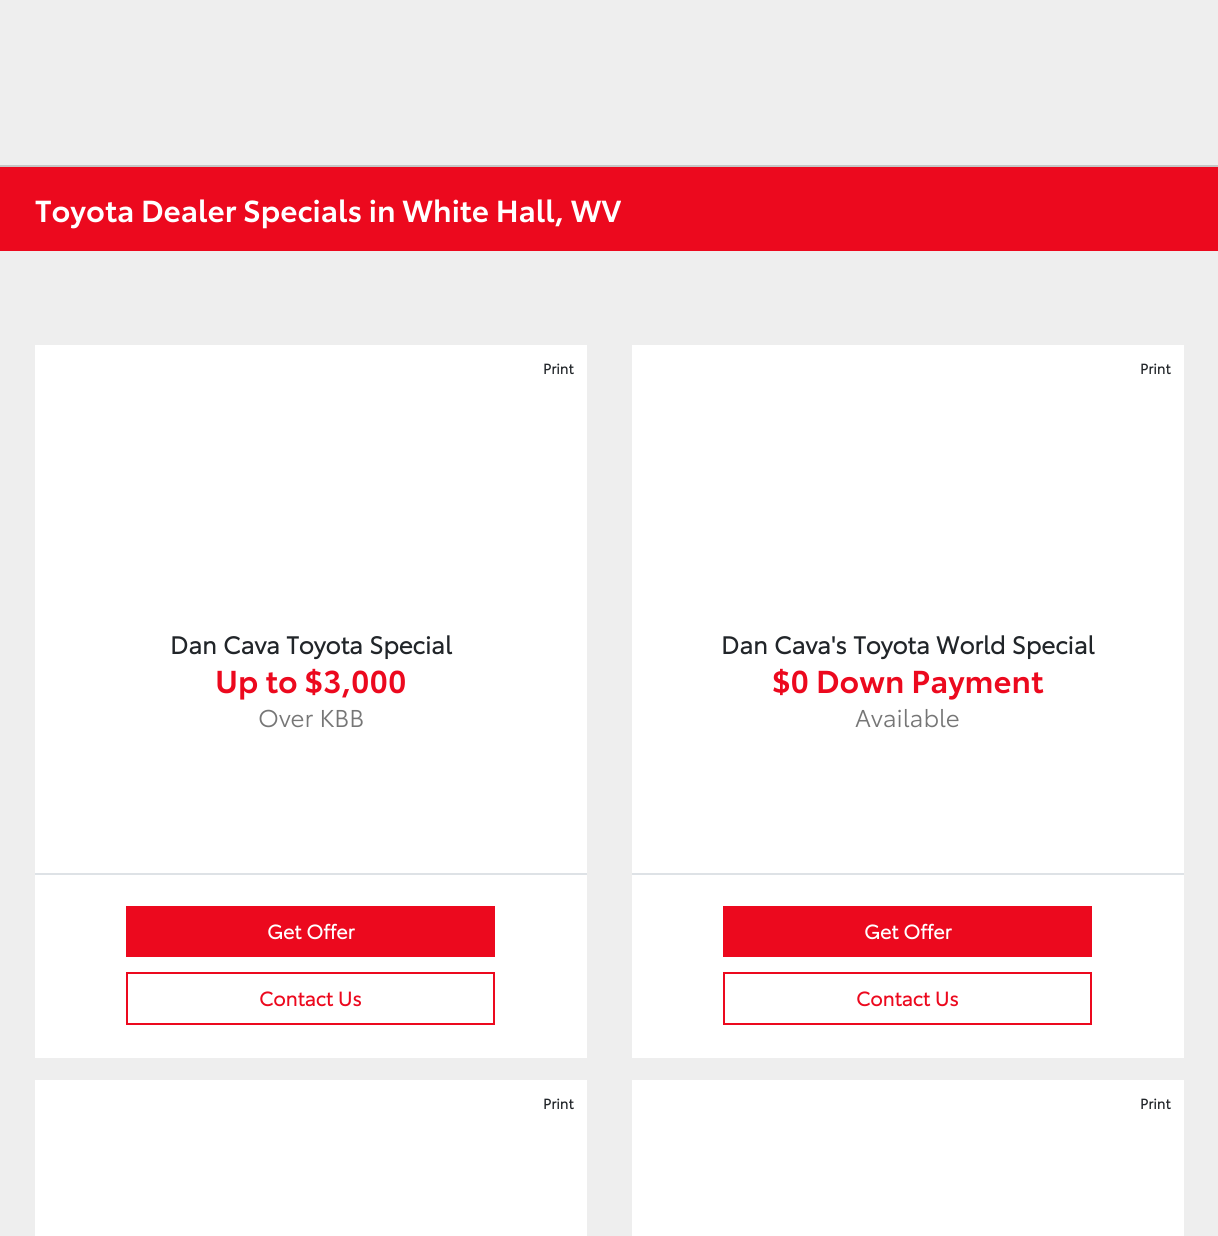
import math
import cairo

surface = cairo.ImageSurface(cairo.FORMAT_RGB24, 1218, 1236)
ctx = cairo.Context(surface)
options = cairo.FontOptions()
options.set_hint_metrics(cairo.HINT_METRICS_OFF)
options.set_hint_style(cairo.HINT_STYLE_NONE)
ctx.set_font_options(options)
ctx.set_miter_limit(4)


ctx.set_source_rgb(0.933, 0.933, 0.933)
ctx.paint()
ctx.set_source_rgb(0.922, 0.039, 0.118)
ctx.rectangle(0, 167, 1218, 84)
ctx.fill()
ctx.set_source_rgb(0.776, 0.776, 0.776)
ctx.rectangle(0, 165, 1218, 2)
ctx.fill()
ctx.select_font_face("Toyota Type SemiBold")
ctx.set_font_size(30)
ctx.set_source_rgb(1, 1, 1)
ctx.move_to(35, 222)
ctx.show_text("Toyota Dealer Specials in White Hall, WV")
ctx.rectangle(35, 345, 552, 713)
ctx.fill()
ctx.select_font_face("Toyota Type", cairo.FONT_SLANT_NORMAL, cairo.FONT_WEIGHT_BOLD)
ctx.set_font_size(14)
ctx.set_source_rgb(0.129, 0.145, 0.161)
ctx.move_to(543, 374)
ctx.show_text("Print")
ctx.set_font_size(24)
ctx.move_to(170, 654)
ctx.show_text("Dan Cava Toyota Special")
ctx.select_font_face("Toyota Type SemiBold")
ctx.set_font_size(31.25)
ctx.set_source_rgb(0.922, 0.039, 0.118)
ctx.move_to(215, 693)
ctx.show_text("Up to $3,000")
ctx.select_font_face("Toyota Type")
ctx.set_font_size(24)
ctx.set_source_rgb(0.463, 0.463, 0.463)
ctx.move_to(258, 727)
ctx.show_text("Over KBB")
ctx.set_source_rgb(0.871, 0.886, 0.902)
ctx.rectangle(35, 873, 552, 2)
ctx.fill()
ctx.set_source_rgb(0.922, 0.039, 0.118)
ctx.rectangle(126, 906, 369, 51)
ctx.fill()
ctx.select_font_face("Toyota Type", cairo.FONT_SLANT_NORMAL, cairo.FONT_WEIGHT_BOLD)
ctx.set_font_size(19.5)
ctx.set_source_rgb(1, 1, 1)
ctx.move_to(267, 939)
ctx.show_text("Get Offer")
ctx.rectangle(127, 973, 367, 51)
ctx.set_source_rgb(0.922, 0.039, 0.118)
ctx.stroke()
ctx.move_to(259, 1006)
ctx.show_text("Contact Us")
ctx.set_source_rgb(1, 1, 1)
ctx.rectangle(632, 345, 552, 713)
ctx.fill()
ctx.set_font_size(14)
ctx.set_source_rgb(0.129, 0.145, 0.161)
ctx.move_to(1140, 374)
ctx.show_text("Print")
ctx.set_font_size(24)
ctx.move_to(721, 654)
ctx.show_text("Dan Cava's Toyota World Special")
ctx.select_font_face("Toyota Type SemiBold")
ctx.set_font_size(31.25)
ctx.set_source_rgb(0.922, 0.039, 0.118)
ctx.move_to(772, 693)
ctx.show_text("$0 Down Payment")
ctx.select_font_face("Toyota Type")
ctx.set_font_size(24)
ctx.set_source_rgb(0.463, 0.463, 0.463)
ctx.move_to(855, 727)
ctx.show_text("Available")
ctx.set_source_rgb(0.871, 0.886, 0.902)
ctx.rectangle(632, 873, 552, 2)
ctx.fill()
ctx.set_source_rgb(0.922, 0.039, 0.118)
ctx.rectangle(723, 906, 369, 51)
ctx.fill()
ctx.select_font_face("Toyota Type", cairo.FONT_SLANT_NORMAL, cairo.FONT_WEIGHT_BOLD)
ctx.set_font_size(19.5)
ctx.set_source_rgb(1, 1, 1)
ctx.move_to(864, 939)
ctx.show_text("Get Offer")
ctx.rectangle(724, 973, 367, 51)
ctx.set_source_rgb(0.922, 0.039, 0.118)
ctx.stroke()
ctx.move_to(856, 1006)
ctx.show_text("Contact Us")
ctx.set_source_rgb(1, 1, 1)
ctx.rectangle(35, 1080, 552, 156)
ctx.fill()
ctx.set_font_size(14)
ctx.set_source_rgb(0.129, 0.145, 0.161)
ctx.move_to(543, 1109)
ctx.show_text("Print")
ctx.set_source_rgb(1, 1, 1)
ctx.rectangle(632, 1080, 552, 156)
ctx.fill()
ctx.set_source_rgb(0.129, 0.145, 0.161)
ctx.move_to(1140, 1109)
ctx.show_text("Print")
surface.write_to_png("page.png")
